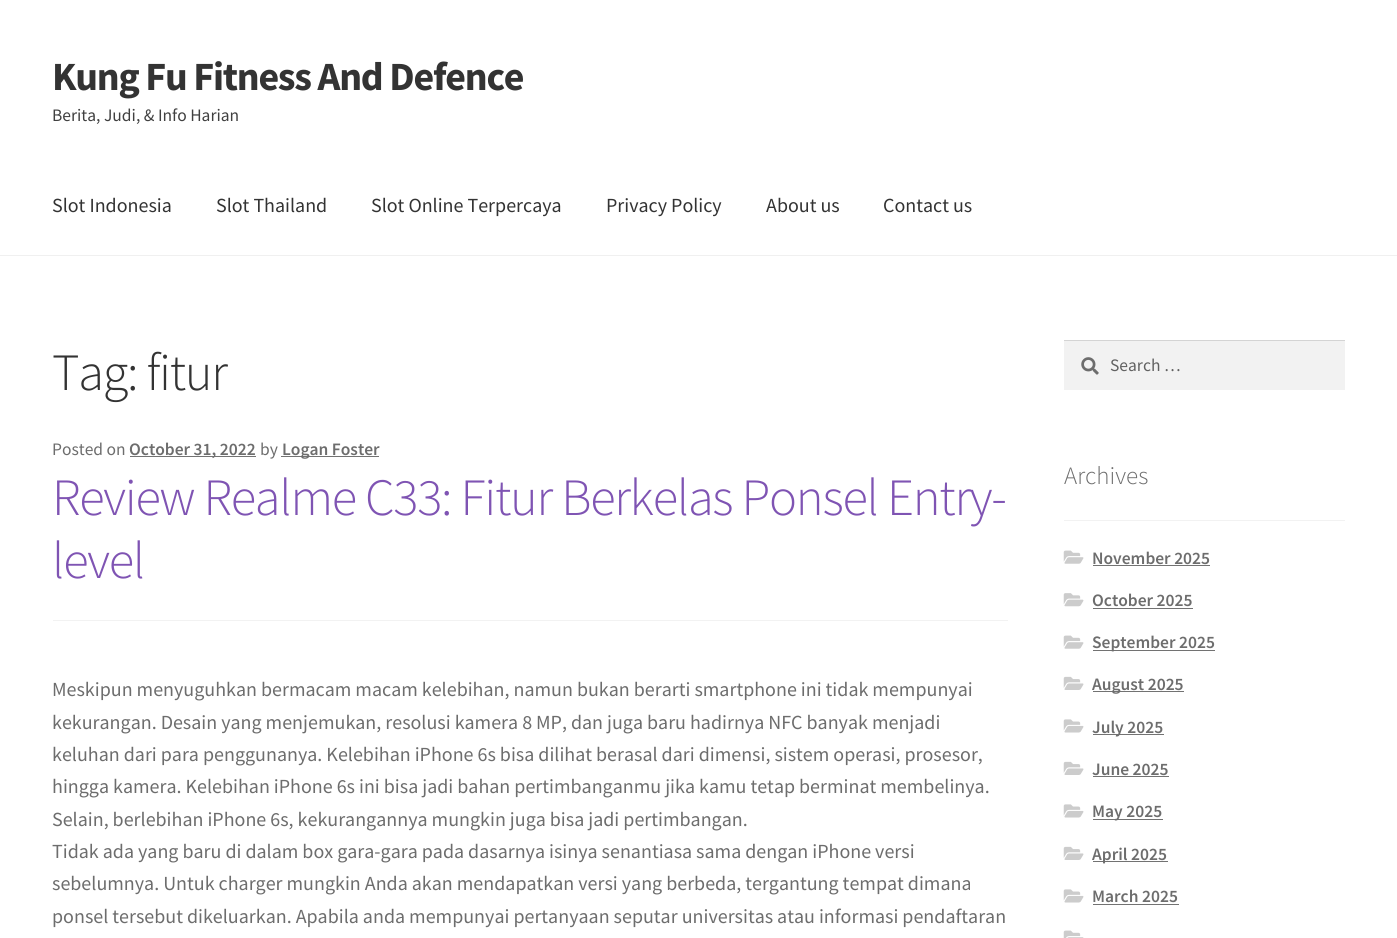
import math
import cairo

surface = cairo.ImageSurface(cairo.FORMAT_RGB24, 1397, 938)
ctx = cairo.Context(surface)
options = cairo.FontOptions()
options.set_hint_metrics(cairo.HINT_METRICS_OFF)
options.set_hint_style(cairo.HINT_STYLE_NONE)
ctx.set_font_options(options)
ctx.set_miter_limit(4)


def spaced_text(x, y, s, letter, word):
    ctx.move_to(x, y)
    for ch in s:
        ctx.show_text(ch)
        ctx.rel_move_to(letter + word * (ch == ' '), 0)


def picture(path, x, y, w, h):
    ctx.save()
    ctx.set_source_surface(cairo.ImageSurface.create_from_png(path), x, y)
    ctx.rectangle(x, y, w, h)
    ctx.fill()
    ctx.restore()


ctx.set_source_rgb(1, 1, 1)
ctx.paint()
ctx.set_source_rgb(0.941, 0.941, 0.941)
ctx.rectangle(0, 255, 1397, 1)
ctx.fill()
ctx.select_font_face("Source Sans Pro", cairo.FONT_SLANT_NORMAL, cairo.FONT_WEIGHT_BOLD)
ctx.set_font_size(40)
ctx.set_source_rgb(0.2, 0.2, 0.2)
spaced_text(52, 90, "Kung Fu Fitness And Defence", -1.25, 0)
ctx.select_font_face("Source Sans Pro")
ctx.set_font_size(17.5)
ctx.set_source_rgb(0.251, 0.251, 0.251)
ctx.move_to(52, 121)
ctx.show_text("Berita, Judi, & Info Harian")
ctx.set_font_size(20)
ctx.set_source_rgb(0.2, 0.2, 0.2)
ctx.move_to(52, 212)
ctx.show_text("Slot Indonesia")
ctx.move_to(216, 212)
ctx.show_text("Slot Thailand")
ctx.move_to(371, 212)
ctx.show_text("Slot Online Terpercaya")
ctx.move_to(606, 212)
ctx.show_text("Privacy Policy")
ctx.move_to(766, 212)
ctx.show_text("About us")
ctx.move_to(883, 212)
ctx.show_text("Contact us")
ctx.select_font_face("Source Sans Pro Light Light")
ctx.set_font_size(52.4)
spaced_text(52, 390, "Tag: fitur", -1.25, 0)
ctx.set_source_rgb(0.949, 0.949, 0.949)
ctx.rectangle(53, 620, 955, 1)
ctx.fill()
ctx.select_font_face("Source Sans Pro")
ctx.set_font_size(17.5)
ctx.set_source_rgb(0.427, 0.427, 0.427)
ctx.move_to(52, 455)
ctx.show_text("Posted on")
ctx.set_source_rgb(0.447, 0.447, 0.447)
ctx.rectangle(130, 456, 126, 1)
ctx.fill()
ctx.select_font_face("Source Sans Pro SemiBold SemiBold")
ctx.set_source_rgb(0.427, 0.427, 0.427)
ctx.move_to(129, 455)
ctx.show_text("October 31, 2022")
ctx.select_font_face("Source Sans Pro")
ctx.move_to(260, 455)
ctx.show_text("by")
ctx.set_source_rgb(0.447, 0.447, 0.447)
ctx.rectangle(281, 456, 98, 1)
ctx.fill()
ctx.select_font_face("Source Sans Pro SemiBold SemiBold")
ctx.set_source_rgb(0.427, 0.427, 0.427)
ctx.move_to(282, 455)
ctx.show_text("Logan Foster")
ctx.select_font_face("Source Sans Pro Light Light")
ctx.set_font_size(52.4)
ctx.set_source_rgb(0.498, 0.329, 0.702)
spaced_text(52, 515, "Review Realme C33: Fitur Berkelas Ponsel Entry-", -1.25, 0)
spaced_text(52, 578, "level", -1.25, 0)
ctx.select_font_face("Source Sans Pro")
ctx.set_font_size(20)
ctx.set_source_rgb(0.427, 0.427, 0.427)
ctx.move_to(52, 696)
ctx.show_text("Meskipun menyuguhkan bermacam macam kelebihan, namun bukan berarti smartphone ini tidak mempunyai")
ctx.move_to(52, 729)
ctx.show_text("kekurangan. Desain yang menjemukan, resolusi kamera 8 MP, dan juga baru hadirnya NFC banyak menjadi")
ctx.move_to(52, 761)
ctx.show_text("keluhan dari para penggunanya. Kelebihan iPhone 6s bisa dilihat berasal dari dimensi, sistem operasi, prosesor,")
ctx.move_to(52, 793)
ctx.show_text("hingga kamera. Kelebihan iPhone 6s ini bisa jadi bahan pertimbanganmu jika kamu tetap berminat membelinya.")
ctx.move_to(52, 826)
ctx.show_text("Selain, berlebihan iPhone 6s, kekurangannya mungkin juga bisa jadi pertimbangan.")
ctx.move_to(52, 858)
ctx.show_text("Tidak ada yang baru di dalam box gara-gara pada dasarnya isinya senantiasa sama dengan iPhone versi")
ctx.move_to(52, 890)
ctx.show_text("sebelumnya. Untuk charger mungkin Anda akan mendapatkan versi yang berbeda, tergantung tempat dimana")
ctx.move_to(52, 923)
ctx.show_text("ponsel tersebut dikeluarkan. Apabila anda mempunyai pertanyaan seputar universitas atau informasi pendaftaran")
ctx.set_source_rgb(0.949, 0.949, 0.949)
ctx.rectangle(1064, 341, 281, 49)
ctx.fill()
picture("img1.png", 1081, 357, 18, 18)
ctx.set_source_rgb(0.831, 0.831, 0.831)
ctx.rectangle(1064, 340, 281, 1)
ctx.fill()
ctx.set_font_size(17.5)
ctx.set_source_rgb(0.38, 0.38, 0.38)
ctx.move_to(1110, 371)
ctx.show_text("Search …")
ctx.set_source_rgb(0.949, 0.949, 0.949)
ctx.rectangle(1064, 520, 281, 1)
ctx.fill()
ctx.select_font_face("Source Sans Pro Light Light")
ctx.set_font_size(25)
ctx.set_source_rgb(0.427, 0.427, 0.427)
ctx.move_to(1064, 484)
ctx.show_text("Archives")
picture("img2.png", 1063, 550, 21, 14)
ctx.select_font_face("Source Sans Pro SemiBold SemiBold")
ctx.set_font_size(17.5)
ctx.move_to(1092, 564)
ctx.show_text("November 2025")
ctx.set_source_rgb(0.447, 0.447, 0.447)
ctx.rectangle(1093, 565, 117, 1)
ctx.fill()
picture("img3.png", 1063, 593, 21, 14)
ctx.set_source_rgb(0.427, 0.427, 0.427)
ctx.move_to(1092, 606)
ctx.show_text("October 2025")
ctx.set_source_rgb(0.447, 0.447, 0.447)
ctx.rectangle(1093, 608, 100, 1)
ctx.fill()
picture("img2.png", 1063, 635, 21, 14)
ctx.rectangle(1093, 650, 122, 1)
ctx.fill()
ctx.set_source_rgb(0.427, 0.427, 0.427)
ctx.move_to(1092, 648)
ctx.show_text("September 2025")
picture("img4.png", 1063, 676, 21, 14)
ctx.set_source_rgb(0.447, 0.447, 0.447)
ctx.rectangle(1093, 691, 91, 1)
ctx.fill()
ctx.set_source_rgb(0.427, 0.427, 0.427)
ctx.move_to(1092, 690)
ctx.show_text("August 2025")
picture("img5.png", 1063, 719, 21, 14)
ctx.set_source_rgb(0.447, 0.447, 0.447)
ctx.rectangle(1093, 734, 71, 1)
ctx.fill()
ctx.set_source_rgb(0.427, 0.427, 0.427)
ctx.move_to(1092, 733)
ctx.show_text("July 2025")
picture("img4.png", 1063, 761, 21, 14)
ctx.move_to(1092, 775)
ctx.show_text("June 2025")
ctx.set_source_rgb(0.447, 0.447, 0.447)
ctx.rectangle(1093, 776, 76, 1)
ctx.fill()
picture("img5.png", 1063, 804, 21, 14)
ctx.rectangle(1093, 819, 70, 1)
ctx.fill()
ctx.set_source_rgb(0.427, 0.427, 0.427)
ctx.move_to(1092, 817)
ctx.show_text("May 2025")
picture("img4.png", 1063, 846, 21, 14)
ctx.set_source_rgb(0.447, 0.447, 0.447)
ctx.rectangle(1093, 861, 75, 1)
ctx.fill()
ctx.set_source_rgb(0.427, 0.427, 0.427)
ctx.move_to(1092, 860)
ctx.show_text("April 2025")
picture("img5.png", 1063, 889, 21, 14)
ctx.move_to(1092, 902)
ctx.show_text("March 2025")
ctx.set_source_rgb(0.447, 0.447, 0.447)
ctx.rectangle(1093, 904, 86, 1)
ctx.fill()
picture("img6.png", 1063, 930, 21, 8)
surface.write_to_png("page.png")
